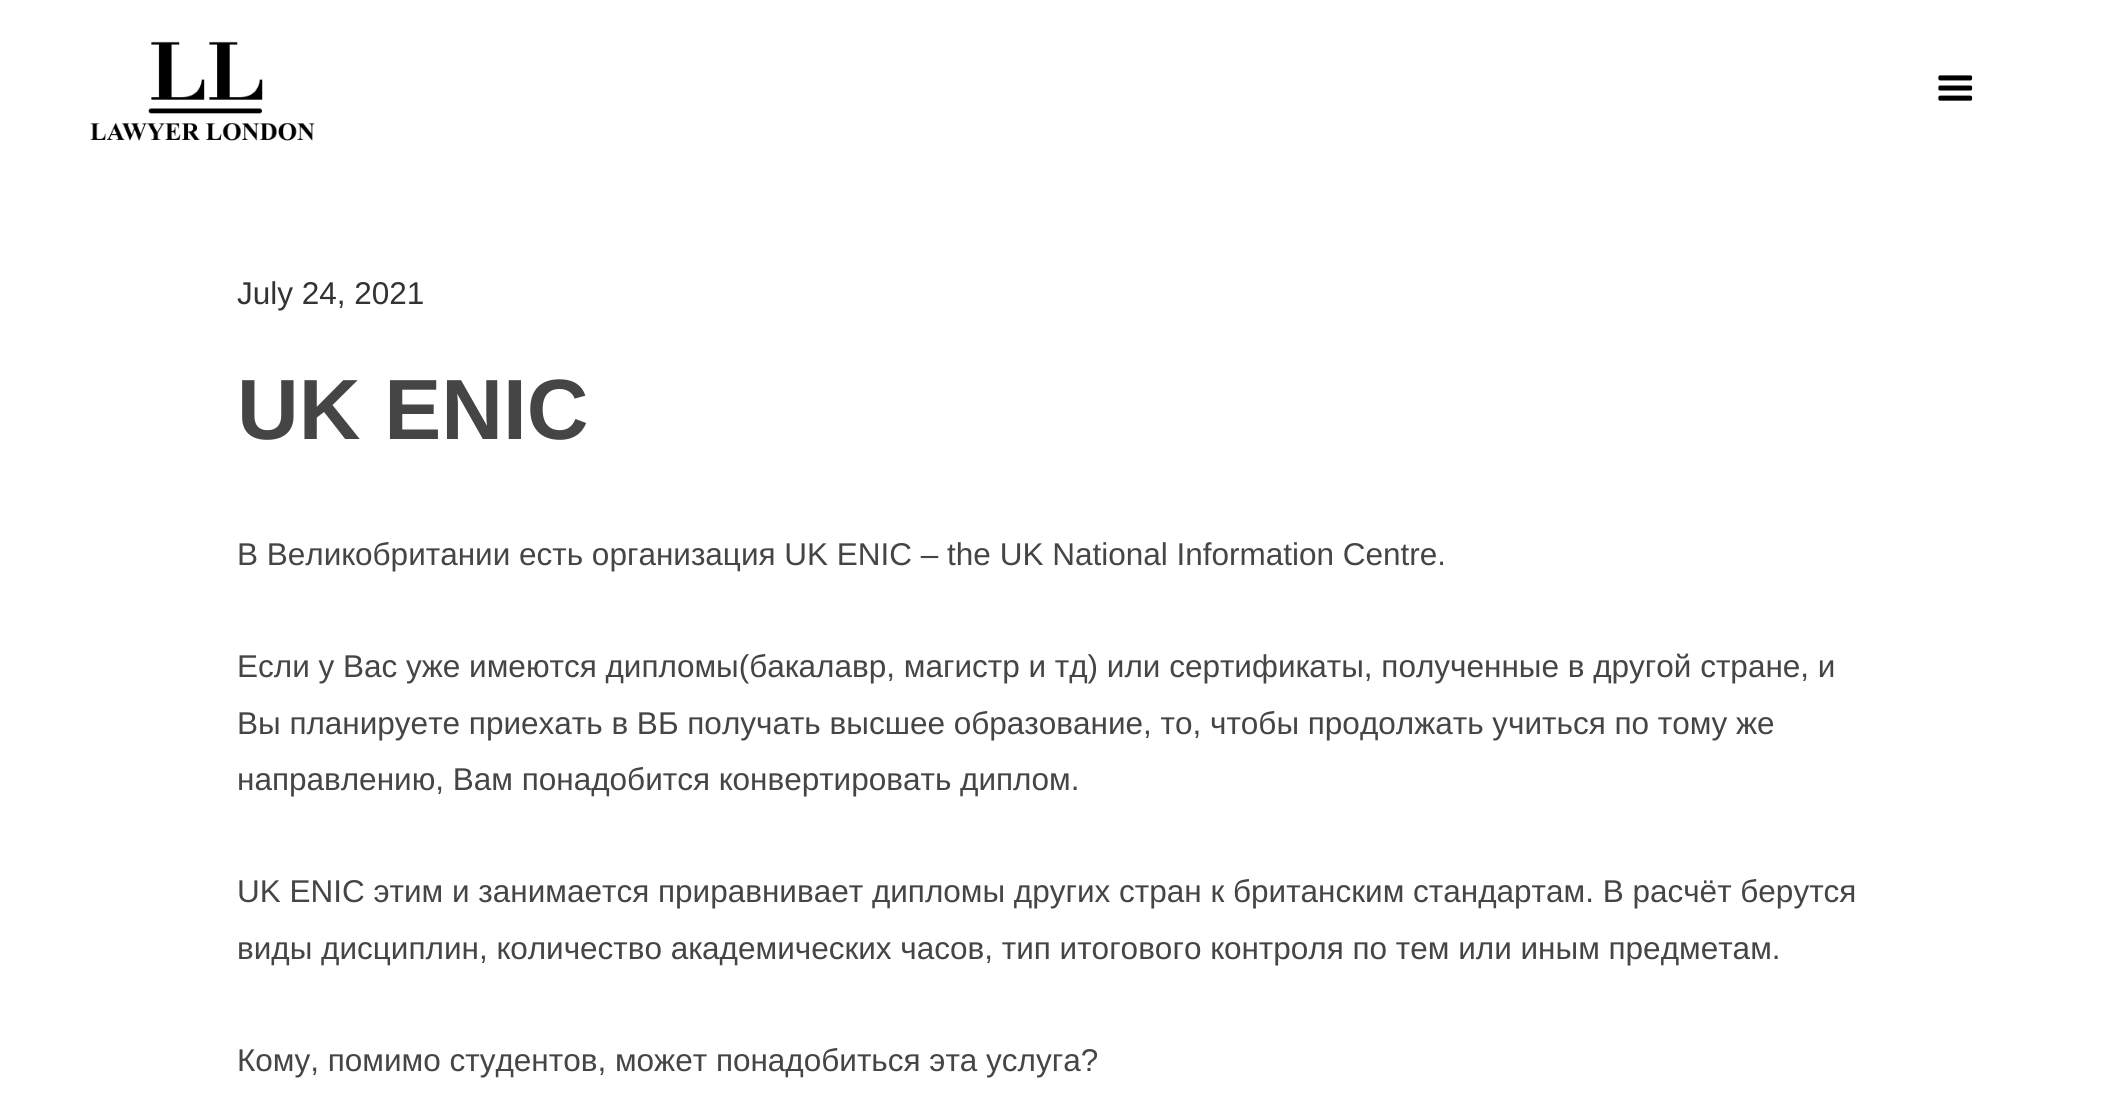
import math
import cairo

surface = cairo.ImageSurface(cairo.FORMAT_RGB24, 2112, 1115)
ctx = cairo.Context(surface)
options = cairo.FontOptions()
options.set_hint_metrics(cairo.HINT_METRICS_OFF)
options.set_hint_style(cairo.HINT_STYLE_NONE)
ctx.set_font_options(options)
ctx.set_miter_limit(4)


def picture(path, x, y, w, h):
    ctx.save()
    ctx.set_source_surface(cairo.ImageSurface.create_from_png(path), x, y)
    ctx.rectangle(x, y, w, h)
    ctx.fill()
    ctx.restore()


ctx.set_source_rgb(1, 1, 1)
ctx.paint()
picture("img1.png", 90, 41, 225, 100)
picture("img2.png", 1938, 75, 35, 26)
ctx.select_font_face("Liberation Sans")
ctx.set_font_size(31.5)
ctx.set_source_rgb(0.2, 0.2, 0.2)
ctx.move_to(237, 304)
ctx.show_text("July 24, 2021")
ctx.select_font_face("Liberation Sans", cairo.FONT_SLANT_NORMAL, cairo.FONT_WEIGHT_BOLD)
ctx.set_font_size(85.5)
ctx.set_source_rgb(0.271, 0.271, 0.271)
ctx.move_to(237, 439)
ctx.show_text("UK ENIC")
ctx.select_font_face("Liberation Sans")
ctx.set_font_size(31.5)
ctx.move_to(237, 565)
ctx.show_text("В Великобритании есть организация UK ENIC – the UK National Information Centre.")
ctx.move_to(237, 677)
ctx.show_text("Если у Вас уже имеются дипломы(бакалавр, магистр и тд) или сертификаты, полученные в другой стране, и")
ctx.move_to(237, 734)
ctx.show_text("Вы планируете приехать в ВБ получать высшее образование, то, чтобы продолжать учиться по тому же")
ctx.move_to(237, 790)
ctx.show_text("направлению, Вам понадобится конвертировать диплом.")
ctx.move_to(237, 902)
ctx.show_text("UK ENIC этим и занимается приравнивает дипломы других стран к британским стандартам. В расчёт берутся")
ctx.move_to(237, 959)
ctx.show_text("виды дисциплин, количество академических часов, тип итогового контроля по тем или иным предметам.")
ctx.move_to(237, 1071)
ctx.show_text("Кому, помимо студентов, может понадобиться эта услуга?")
surface.write_to_png("page.png")
